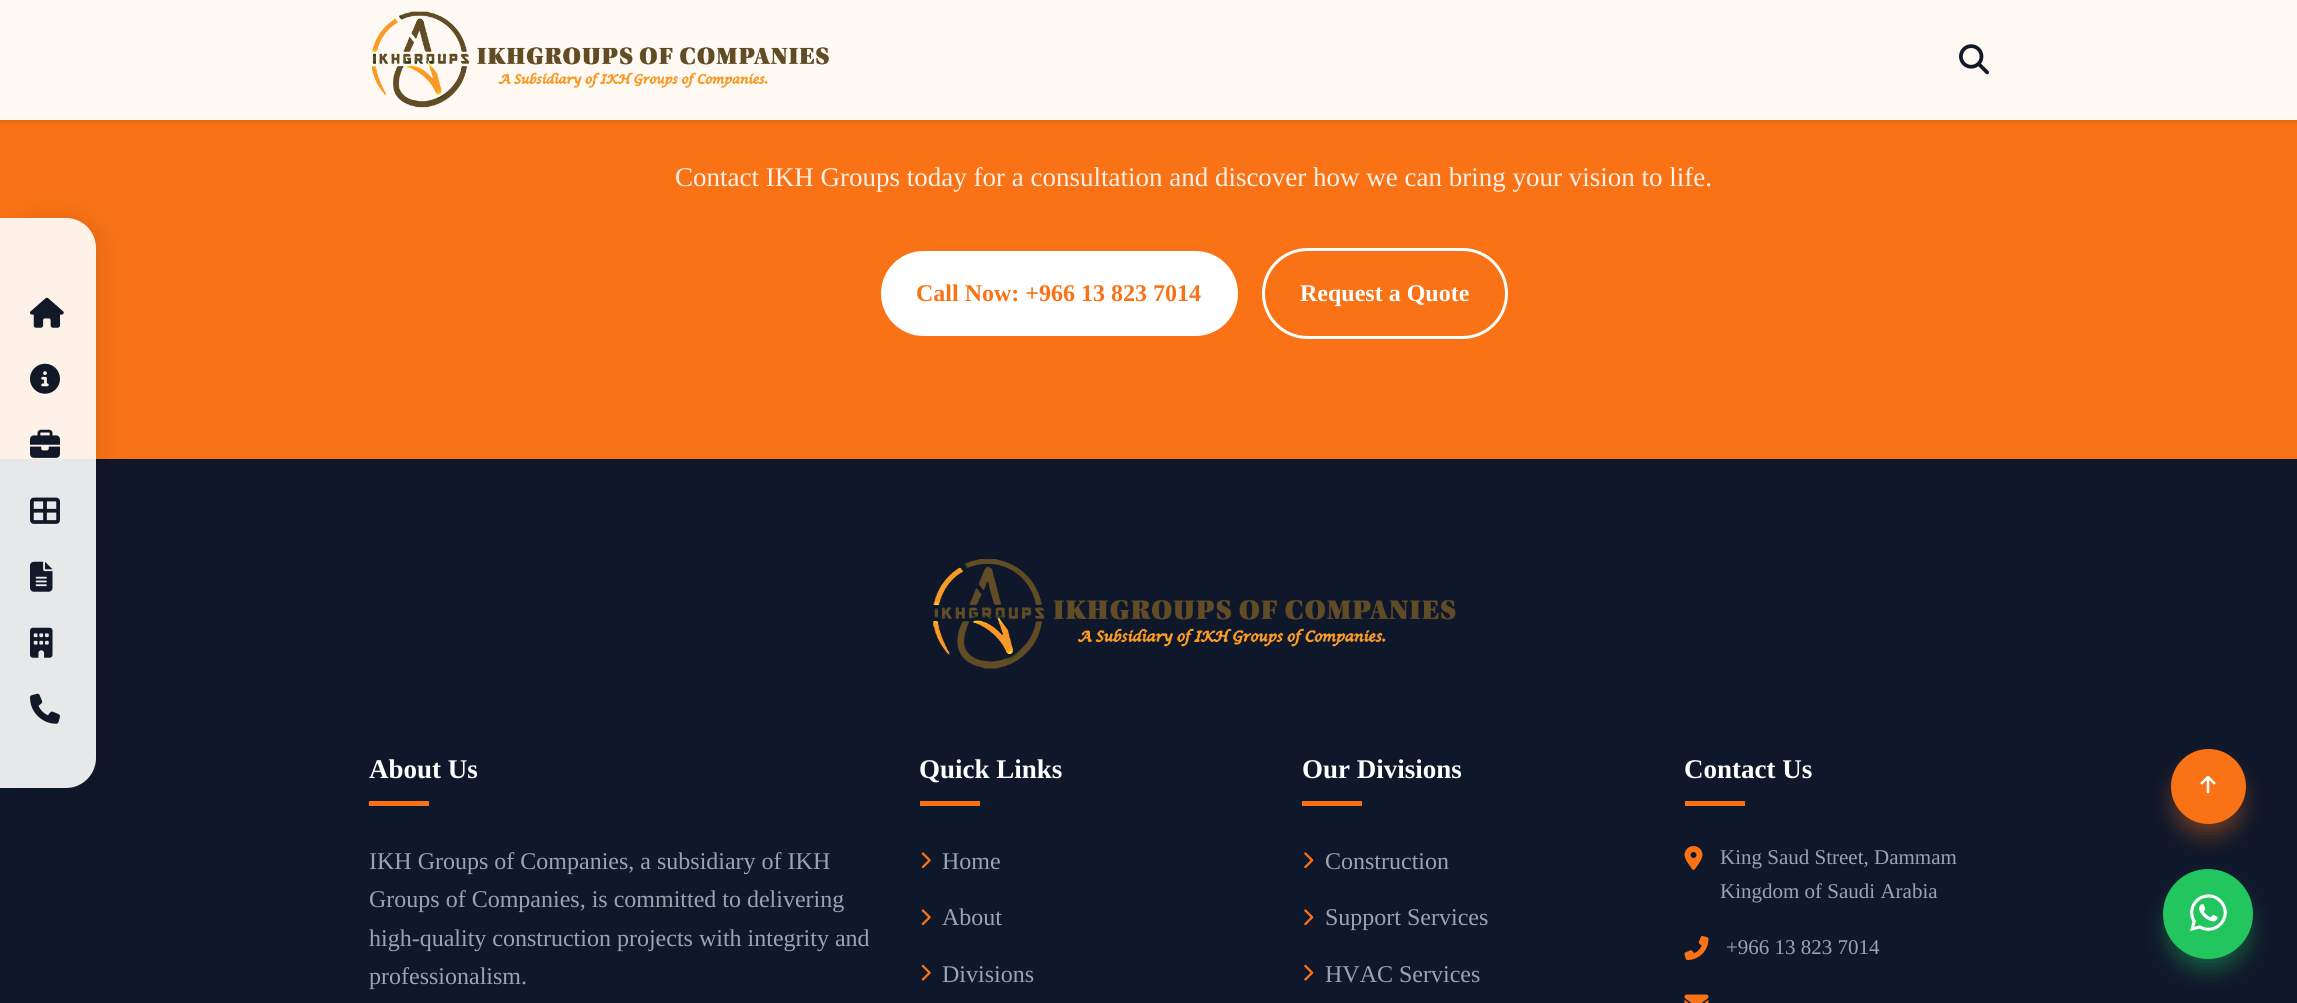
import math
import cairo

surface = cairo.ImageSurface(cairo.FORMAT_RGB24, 2297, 1003)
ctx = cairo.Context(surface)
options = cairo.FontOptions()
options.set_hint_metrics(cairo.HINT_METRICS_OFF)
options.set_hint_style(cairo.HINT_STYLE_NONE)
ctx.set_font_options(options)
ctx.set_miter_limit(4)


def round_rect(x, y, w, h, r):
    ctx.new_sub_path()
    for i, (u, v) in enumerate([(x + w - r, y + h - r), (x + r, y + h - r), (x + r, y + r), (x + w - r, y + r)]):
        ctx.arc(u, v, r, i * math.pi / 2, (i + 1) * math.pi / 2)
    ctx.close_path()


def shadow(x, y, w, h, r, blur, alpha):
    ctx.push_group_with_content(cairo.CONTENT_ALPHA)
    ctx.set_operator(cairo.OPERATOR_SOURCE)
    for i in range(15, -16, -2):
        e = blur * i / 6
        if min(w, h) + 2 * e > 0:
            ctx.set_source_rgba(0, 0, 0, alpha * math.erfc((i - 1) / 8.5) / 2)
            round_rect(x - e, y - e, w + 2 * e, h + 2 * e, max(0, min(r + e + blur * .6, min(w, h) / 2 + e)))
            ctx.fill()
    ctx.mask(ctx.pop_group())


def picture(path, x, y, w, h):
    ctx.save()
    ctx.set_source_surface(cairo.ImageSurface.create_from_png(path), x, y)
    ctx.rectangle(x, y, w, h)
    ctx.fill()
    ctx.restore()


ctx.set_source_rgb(0.976, 0.451, 0.086)
ctx.paint()
ctx.set_source_rgb(1, 0.973, 0.953)
ctx.rectangle(0, 0, 2297, 120)
ctx.fill()
ctx.save()
ctx.rectangle(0, 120, 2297, 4)
ctx.clip()
ctx.set_source_rgb(0, 0, 0)
shadow(0, 2, 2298, 120, 0, 2, 0.1)
ctx.restore()
picture("img1.png", 372, 11, 457, 97)
picture("img2.png", 1959, 44, 30, 31)
ctx.set_source_rgb(0.059, 0.09, 0.165)
ctx.rectangle(0, 459, 2297, 544)
ctx.fill()
ctx.save()
ctx.set_fill_rule(cairo.FILL_RULE_EVEN_ODD)
ctx.new_path()
ctx.move_to(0, 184)
ctx.line_to(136, 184)
ctx.line_to(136, 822)
ctx.line_to(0, 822)
ctx.close_path()
ctx.move_to(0, 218)
ctx.line_to(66, 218)
ctx.curve_to(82.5, 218, 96, 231.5, 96, 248)
ctx.line_to(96, 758)
ctx.curve_to(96, 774.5, 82.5, 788, 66, 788)
ctx.line_to(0, 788)
ctx.close_path()
ctx.clip()
ctx.set_source_rgb(0, 0, 0)
shadow(6, 218, 96, 570, 30, 11, 0.1)
ctx.restore()
ctx.set_source_rgba(1, 1, 1, 0.9)
ctx.new_path()
ctx.move_to(0, 218)
ctx.line_to(66, 218)
ctx.curve_to(82.5, 218, 96, 231.5, 96, 248)
ctx.line_to(96, 758)
ctx.curve_to(96, 774.5, 82.5, 788, 66, 788)
ctx.line_to(0, 788)
ctx.close_path()
ctx.fill()
picture("img3.png", 30, 297, 34, 31)
picture("img4.png", 30, 363, 30, 31)
picture("img5.png", 30, 429, 30, 29)
picture("img6.png", 30, 497, 30, 27)
picture("img7.png", 30, 561, 23, 31)
picture("img8.png", 30, 627, 23, 31)
picture("img9.png", 30, 693, 30, 31)
ctx.select_font_face("Liberation Serif")
ctx.set_font_size(27)
ctx.set_source_rgb(0.996, 0.945, 0.91)
ctx.move_to(675, 186)
ctx.show_text("Contact IKH Groups today for a consultation and discover how we can bring your vision to life.")
ctx.set_source_rgb(1, 1, 1)
round_rect(881, 251, 357, 85, 42.5)
ctx.fill()
ctx.select_font_face("Liberation Serif", cairo.FONT_SLANT_NORMAL, cairo.FONT_WEIGHT_BOLD)
ctx.set_font_size(24)
ctx.set_source_rgb(0.976, 0.451, 0.086)
ctx.move_to(916, 301)
ctx.show_text("Call Now: +966 13 823 7014")
round_rect(1263.5, 249.5, 243, 88, 44)
ctx.set_source_rgb(1, 1, 1)
ctx.set_line_width(3)
ctx.stroke()
ctx.move_to(1300, 301)
ctx.show_text("Request a Quote")
ctx.set_source_rgb(0.976, 0.451, 0.086)
shadow(2175, 768, 66, 66, 33, 11, 0.4)
ctx.set_source_rgb(0.976, 0.451, 0.086)
ctx.arc(2208.5, 786.5, 37.5, 0, 2 * math.pi)
ctx.fill()
picture("img10.png", 2200, 775, 16, 19)
picture("img11.png", 933, 559, 523, 110)
ctx.set_font_size(27)
ctx.set_source_rgb(1, 1, 1)
ctx.move_to(369, 778)
ctx.show_text("About Us")
ctx.set_source_rgb(0.976, 0.451, 0.086)
ctx.rectangle(369, 801, 60, 5)
ctx.fill()
ctx.select_font_face("Liberation Serif")
ctx.set_font_size(24)
ctx.set_source_rgb(0.612, 0.639, 0.686)
ctx.move_to(369, 869)
ctx.show_text("IKH Groups of Companies, a subsidiary of IKH")
ctx.move_to(369, 907)
ctx.show_text("Groups of Companies, is committed to delivering")
ctx.move_to(369, 946)
ctx.show_text("high-quality construction projects with integrity and")
ctx.move_to(369, 984)
ctx.show_text("professionalism.")
ctx.select_font_face("Liberation Serif", cairo.FONT_SLANT_NORMAL, cairo.FONT_WEIGHT_BOLD)
ctx.set_font_size(27)
ctx.set_source_rgb(1, 1, 1)
ctx.move_to(919, 778)
ctx.show_text("Quick Links")
ctx.set_source_rgb(0.976, 0.451, 0.086)
ctx.rectangle(920, 801, 60, 5)
ctx.fill()
picture("img12.png", 921, 852, 10, 17)
ctx.select_font_face("Liberation Serif")
ctx.set_font_size(24)
ctx.set_source_rgb(0.612, 0.639, 0.686)
ctx.move_to(942, 869)
ctx.show_text("Home")
picture("img12.png", 921, 909, 10, 17)
ctx.move_to(942, 925)
ctx.show_text("About")
picture("img13.png", 921, 964, 10, 17)
ctx.move_to(942, 982)
ctx.show_text("Divisions")
ctx.select_font_face("Liberation Serif", cairo.FONT_SLANT_NORMAL, cairo.FONT_WEIGHT_BOLD)
ctx.set_font_size(27)
ctx.set_source_rgb(1, 1, 1)
ctx.move_to(1302, 778)
ctx.show_text("Our Divisions")
ctx.set_source_rgb(0.976, 0.451, 0.086)
ctx.rectangle(1302, 801, 60, 5)
ctx.fill()
picture("img14.png", 1304, 852, 10, 17)
ctx.select_font_face("Liberation Serif")
ctx.set_font_size(24)
ctx.set_source_rgb(0.612, 0.639, 0.686)
ctx.move_to(1325, 869)
ctx.show_text("Construction")
picture("img14.png", 1304, 909, 10, 17)
ctx.move_to(1325, 925)
ctx.show_text("Support Services")
picture("img15.png", 1304, 964, 10, 17)
ctx.move_to(1325, 982)
ctx.show_text("HVAC Services")
ctx.select_font_face("Liberation Serif", cairo.FONT_SLANT_NORMAL, cairo.FONT_WEIGHT_BOLD)
ctx.set_font_size(27)
ctx.set_source_rgb(1, 1, 1)
ctx.move_to(1684, 778)
ctx.show_text("Contact Us")
ctx.set_source_rgb(0.976, 0.451, 0.086)
ctx.rectangle(1685, 801, 60, 5)
ctx.fill()
picture("img16.png", 1684, 846, 19, 24)
ctx.select_font_face("Liberation Serif")
ctx.set_font_size(21)
ctx.set_source_rgb(0.612, 0.639, 0.686)
ctx.move_to(1720, 864)
ctx.show_text("King Saud Street, Dammam")
ctx.move_to(1720, 898)
ctx.show_text("Kingdom of Saudi Arabia")
picture("img17.png", 1684, 936, 25, 24)
ctx.move_to(1726, 954)
ctx.show_text("+966 13 823 7014")
picture("img18.png", 1684, 994, 25, 9)
ctx.set_source_rgb(0.133, 0.773, 0.369)
shadow(2168, 888, 81, 81, 40.5, 11, 0.4)
ctx.set_source_rgb(0.133, 0.773, 0.369)
ctx.arc(2208, 914, 45, 0, 2 * math.pi)
ctx.fill()
picture("img19.png", 2190, 894, 37, 38)
surface.write_to_png("page.png")
